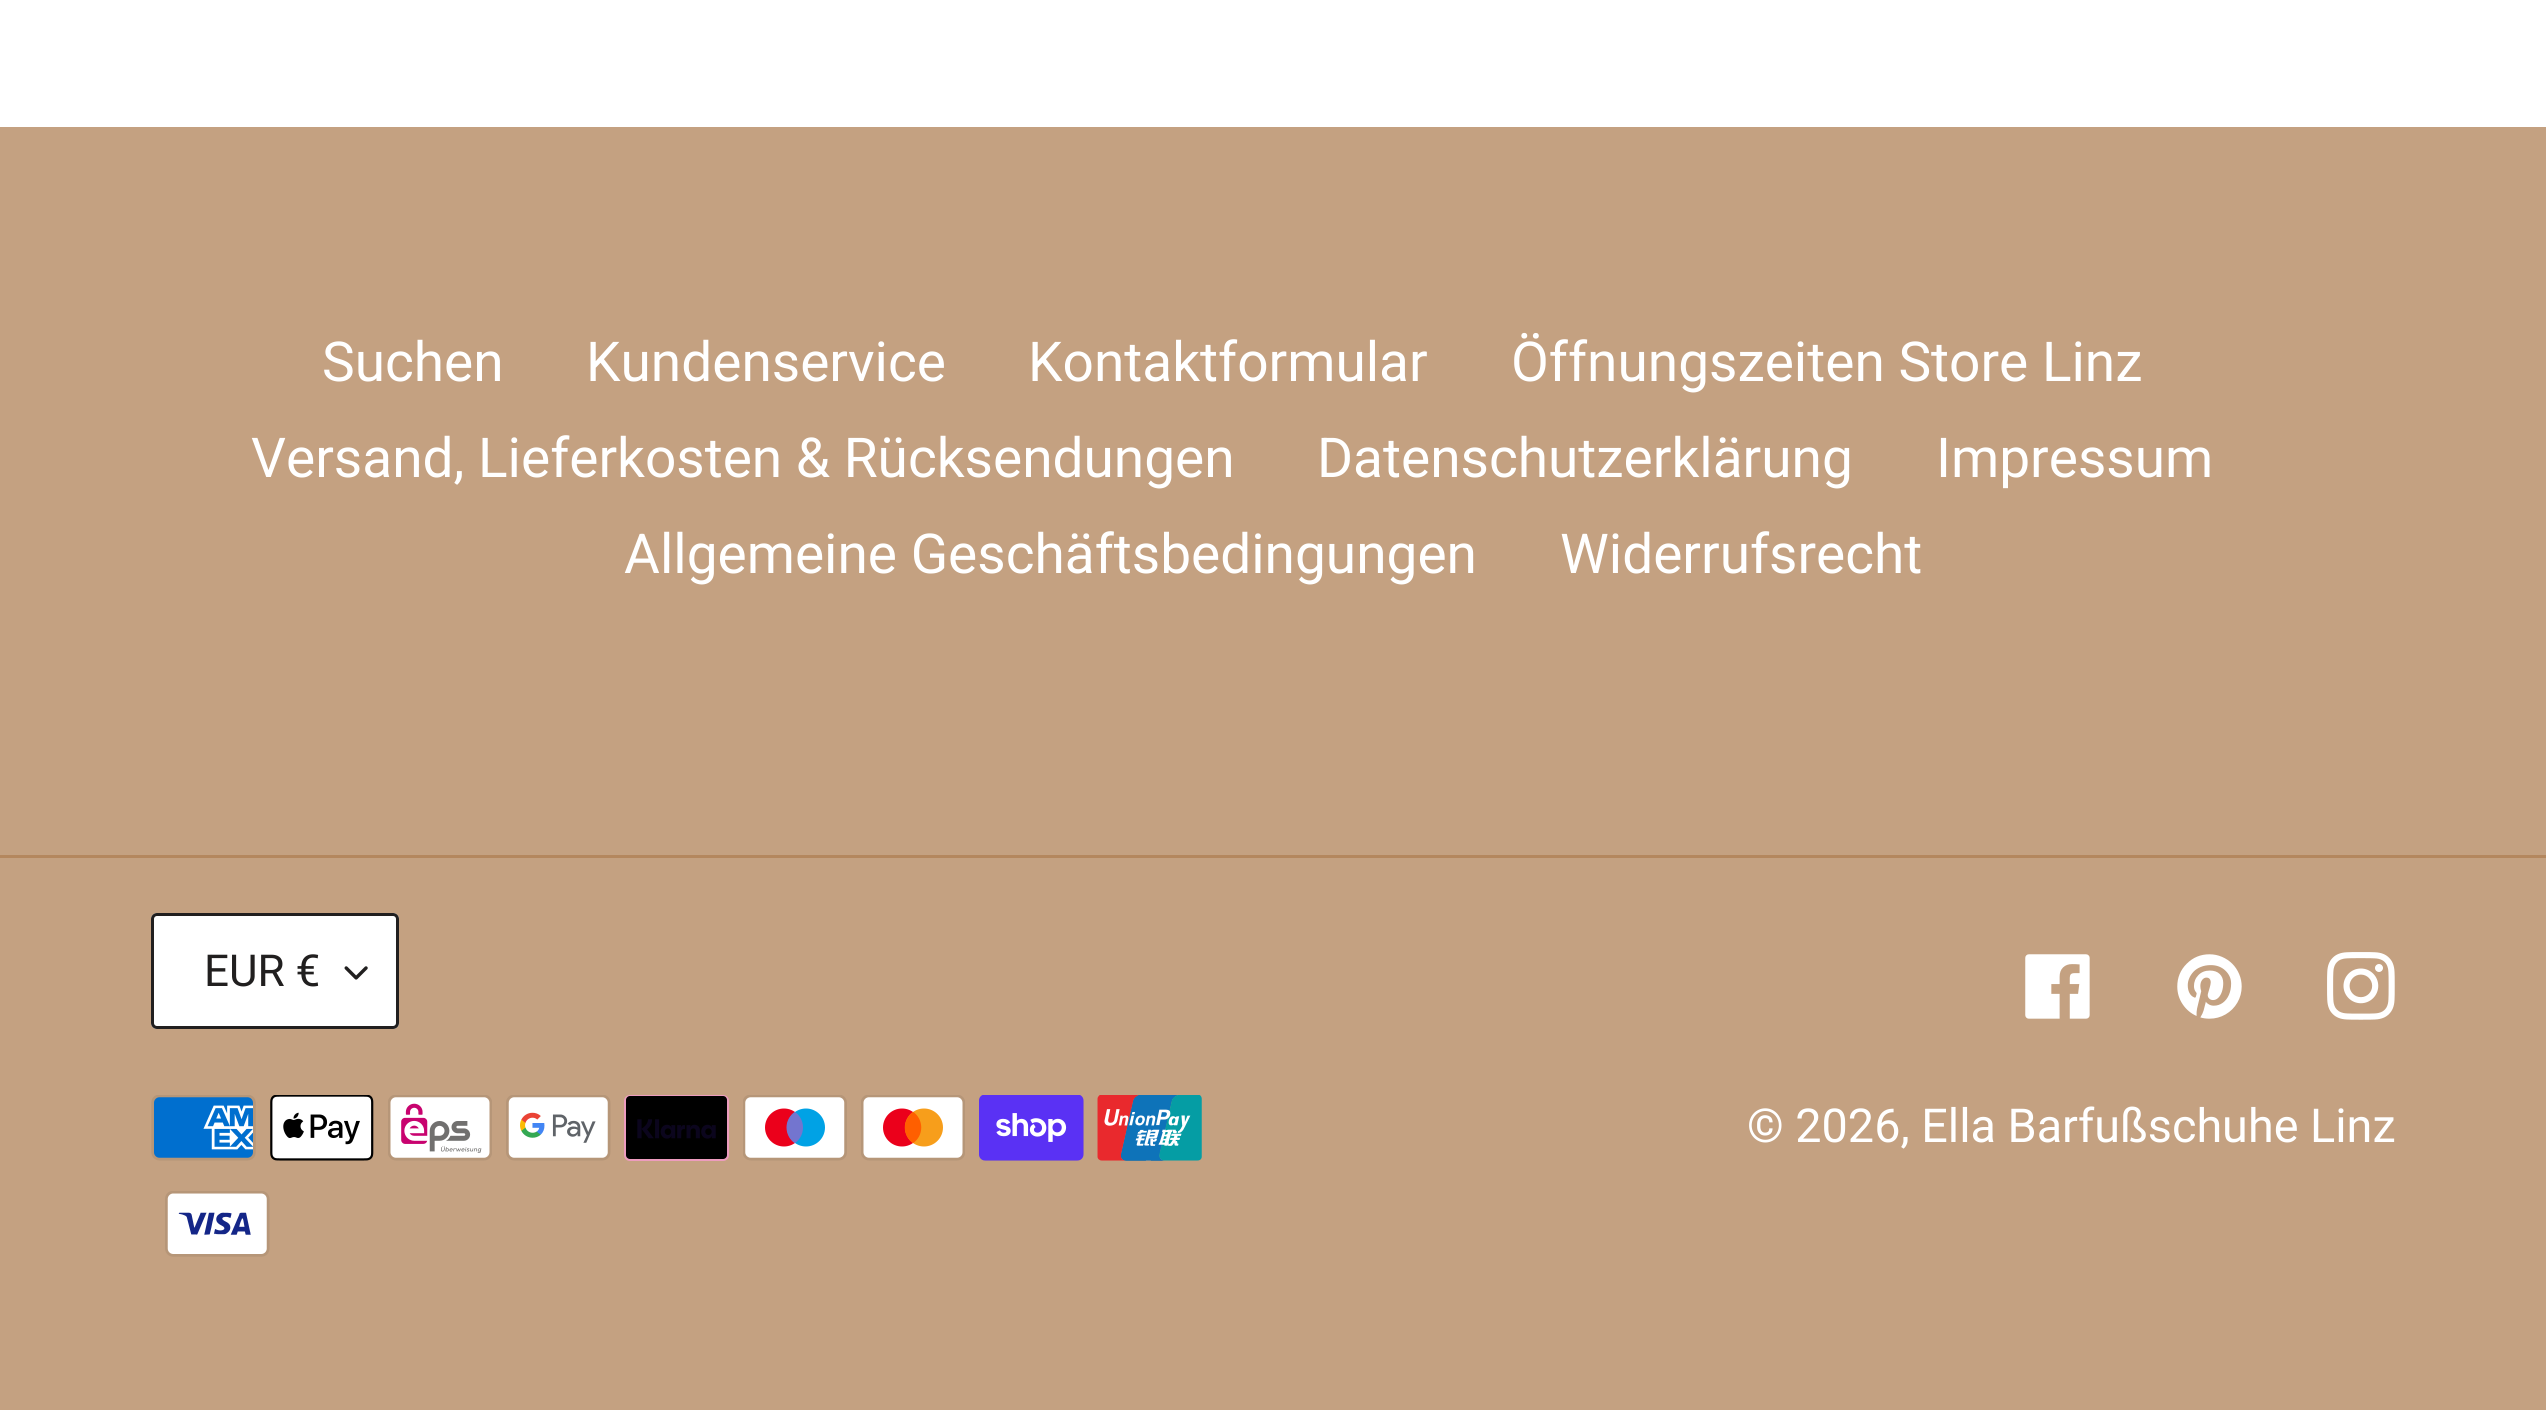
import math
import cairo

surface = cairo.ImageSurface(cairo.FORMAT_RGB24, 2546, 1410)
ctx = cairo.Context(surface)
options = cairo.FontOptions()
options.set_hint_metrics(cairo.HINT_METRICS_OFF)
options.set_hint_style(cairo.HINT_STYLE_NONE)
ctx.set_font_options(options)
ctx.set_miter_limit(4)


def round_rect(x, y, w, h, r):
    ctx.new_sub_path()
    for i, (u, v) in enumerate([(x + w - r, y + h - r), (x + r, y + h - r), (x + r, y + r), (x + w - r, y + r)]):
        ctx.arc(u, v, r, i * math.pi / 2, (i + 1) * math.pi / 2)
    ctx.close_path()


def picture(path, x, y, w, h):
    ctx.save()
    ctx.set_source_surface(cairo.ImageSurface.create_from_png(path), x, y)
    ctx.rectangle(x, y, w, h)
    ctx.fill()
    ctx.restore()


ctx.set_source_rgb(1, 1, 1)
ctx.paint()
ctx.set_source_rgb(0.769, 0.631, 0.506)
ctx.rectangle(0, 127, 2546, 1283)
ctx.fill()
ctx.select_font_face("Roboto")
ctx.set_font_size(55)
ctx.set_source_rgb(1, 1, 1)
ctx.move_to(322, 381)
ctx.show_text("Suchen")
ctx.move_to(586, 381)
ctx.show_text("Kundenservice")
ctx.move_to(1028, 381)
ctx.show_text("Kontaktformular")
ctx.move_to(1511, 381)
ctx.show_text("Öffnungszeiten Store Linz")
ctx.move_to(251, 477)
ctx.show_text("Versand, Lieferkosten & Rücksendungen")
ctx.move_to(1317, 477)
ctx.show_text("Datenschutzerklärung")
ctx.move_to(1936, 477)
ctx.show_text("Impressum")
ctx.move_to(624, 573)
ctx.show_text("Allgemeine Geschäftsbedingungen")
ctx.move_to(1560, 573)
ctx.show_text("Widerrufsrecht")
ctx.set_source_rgb(0.706, 0.529, 0.369)
ctx.rectangle(0, 855, 2546, 3)
ctx.fill()
ctx.set_source_rgb(1, 1, 1)
round_rect(151, 913, 248, 116, 6)
ctx.fill()
picture("img1.png", 344, 966, 24, 14)
round_rect(152.5, 914.5, 245, 113, 4.5)
ctx.set_source_rgb(0.129, 0.122, 0.122)
ctx.set_line_width(3)
ctx.stroke()
ctx.set_font_size(44)
ctx.move_to(204, 986)
ctx.show_text("EUR €")
picture("img2.png", 2025, 954, 65, 65)
picture("img3.png", 2177, 954, 65, 65)
picture("img4.png", 2327, 952, 68, 68)
picture("img5.png", 151, 1095, 105, 66)
picture("img6.png", 270, 1095, 104, 66)
picture("img7.png", 388, 1095, 104, 66)
picture("img8.png", 506, 1095, 105, 66)
picture("img9.png", 624, 1095, 105, 66)
picture("img10.png", 743, 1095, 104, 66)
picture("img11.png", 861, 1095, 104, 66)
picture("img12.png", 979, 1095, 105, 66)
picture("img13.png", 1097, 1095, 105, 66)
picture("img14.png", 165, 1191, 105, 66)
ctx.set_font_size(46.75)
ctx.set_source_rgb(1, 1, 1)
ctx.move_to(1747, 1142)
ctx.show_text("© 2026, Ella Barfußschuhe Linz")
surface.write_to_png("page.png")
